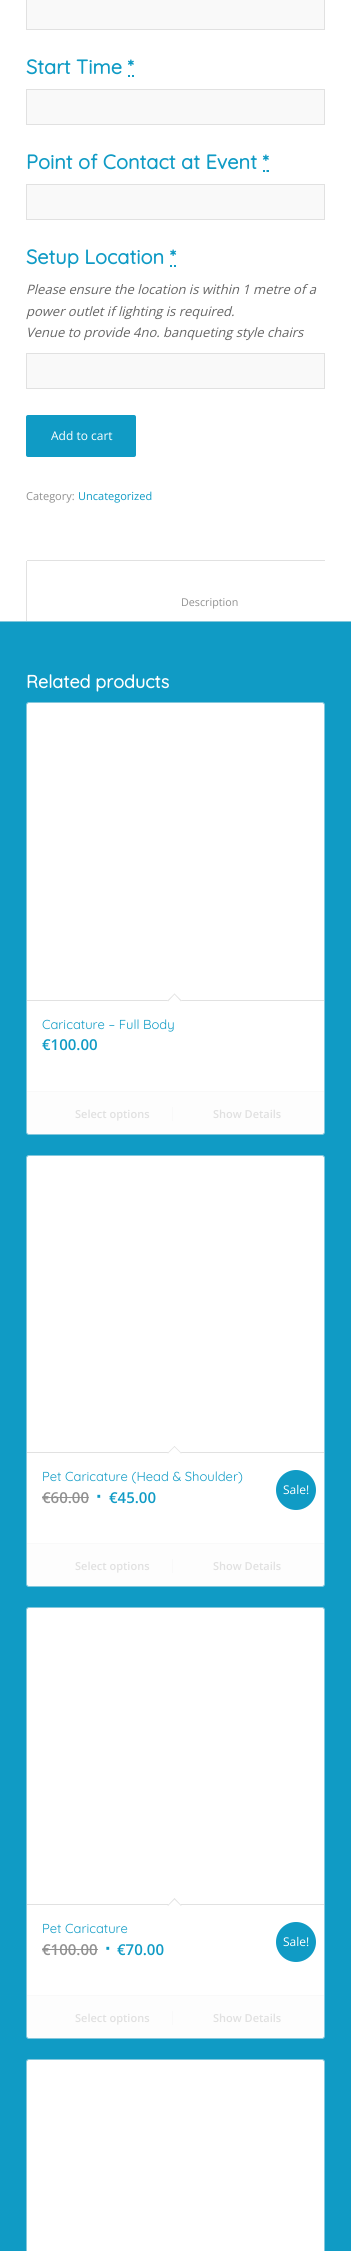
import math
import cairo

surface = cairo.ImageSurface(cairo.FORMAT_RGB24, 351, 2251)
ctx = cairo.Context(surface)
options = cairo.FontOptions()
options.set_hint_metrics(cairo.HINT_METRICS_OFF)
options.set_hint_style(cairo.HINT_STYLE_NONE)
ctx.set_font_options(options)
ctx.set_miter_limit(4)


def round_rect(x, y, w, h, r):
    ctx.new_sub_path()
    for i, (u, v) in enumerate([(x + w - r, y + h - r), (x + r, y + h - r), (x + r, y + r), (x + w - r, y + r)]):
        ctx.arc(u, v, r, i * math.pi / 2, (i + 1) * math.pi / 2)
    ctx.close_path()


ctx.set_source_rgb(1, 1, 1)
ctx.paint()
ctx.set_source_rgb(0.973, 0.973, 0.973)
ctx.rectangle(26.5, -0.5, 298, 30)
ctx.fill_preserve()
ctx.set_source_rgb(0.882, 0.882, 0.882)
ctx.set_line_width(1)
ctx.stroke()
ctx.select_font_face("Quicksand", cairo.FONT_SLANT_NORMAL, cairo.FONT_WEIGHT_BOLD)
ctx.set_font_size(20)
ctx.set_source_rgb(0.063, 0.608, 0.773)
ctx.move_to(26, 74)
ctx.show_text("Start Time *")
ctx.new_path()
ctx.move_to(128, 76)
ctx.line_to(130, 76)
ctx.move_to(132, 76)
ctx.line_to(134, 76)
ctx.set_line_width(2)
ctx.stroke()
ctx.set_source_rgb(0.973, 0.973, 0.973)
ctx.rectangle(26.5, 89.5, 298, 35)
ctx.fill_preserve()
ctx.set_source_rgb(0.882, 0.882, 0.882)
ctx.set_line_width(1)
ctx.stroke()
ctx.set_source_rgb(0.063, 0.608, 0.773)
ctx.move_to(26, 169)
ctx.show_text("Point of Contact at Event *")
ctx.new_path()
ctx.move_to(263, 171)
ctx.line_to(265, 171)
ctx.move_to(266.5, 171)
ctx.line_to(269, 171)
ctx.set_line_width(2)
ctx.stroke()
ctx.set_source_rgb(0.973, 0.973, 0.973)
ctx.rectangle(26.5, 184.5, 298, 35)
ctx.fill_preserve()
ctx.set_source_rgb(0.882, 0.882, 0.882)
ctx.set_line_width(1)
ctx.stroke()
ctx.set_source_rgb(0.063, 0.608, 0.773)
ctx.move_to(26, 264)
ctx.show_text("Setup Location *")
ctx.new_path()
ctx.move_to(170, 266)
ctx.line_to(172, 266)
ctx.move_to(174, 266)
ctx.line_to(176, 266)
ctx.set_line_width(2)
ctx.stroke()
ctx.select_font_face("Open Sans", cairo.FONT_SLANT_ITALIC)
ctx.set_font_size(13)
ctx.set_source_rgb(0.4, 0.4, 0.4)
ctx.move_to(26, 294)
ctx.show_text("Please ensure the location is within 1 metre of a")
ctx.move_to(26, 316)
ctx.show_text("power outlet if lighting is required.")
ctx.move_to(26, 337)
ctx.show_text("Venue to provide 4no. banqueting style chairs")
ctx.set_source_rgb(0.973, 0.973, 0.973)
ctx.rectangle(26.5, 353.5, 298, 35)
ctx.fill_preserve()
ctx.set_source_rgb(0.882, 0.882, 0.882)
ctx.set_line_width(1)
ctx.stroke()
ctx.set_source_rgb(0.063, 0.608, 0.773)
round_rect(26, 415, 110, 42, 2)
ctx.fill()
ctx.select_font_face("Open Sans")
ctx.set_font_size(12)
ctx.set_source_rgb(1, 1, 1)
ctx.move_to(51, 440)
ctx.show_text("Add to cart")
ctx.set_font_size(11)
ctx.set_source_rgb(0.569, 0.569, 0.569)
ctx.move_to(26, 500)
ctx.show_text("Category:")
ctx.set_source_rgb(0.063, 0.608, 0.773)
ctx.move_to(78, 500)
ctx.show_text("Uncategorized")
ctx.set_source_rgb(0.882, 0.882, 0.882)
ctx.rectangle(27, 560, 298, 1)
ctx.fill()
ctx.rectangle(26, 561, 1, 60)
ctx.fill()
ctx.set_font_size(10.75)
ctx.set_source_rgb(0.569, 0.569, 0.569)
ctx.move_to(181, 606)
ctx.show_text("Description")
ctx.set_source_rgb(0.063, 0.608, 0.773)
ctx.rectangle(0, 622, 351, 1629)
ctx.fill()
ctx.set_source_rgb(0.514, 0.78, 0.863)
ctx.rectangle(0, 621, 351, 1)
ctx.fill()
ctx.select_font_face("Quicksand", cairo.FONT_SLANT_NORMAL, cairo.FONT_WEIGHT_BOLD)
ctx.set_font_size(18)
ctx.set_source_rgb(1, 1, 1)
ctx.move_to(26, 688)
ctx.show_text("Related products")
round_rect(26.5, 702.5, 298, 432, 2.5)
ctx.fill_preserve()
ctx.set_source_rgb(0.514, 0.78, 0.863)
ctx.stroke()
ctx.set_source_rgb(0.882, 0.882, 0.882)
ctx.rectangle(27, 1000, 297, 1)
ctx.fill()
ctx.set_source_rgb(1, 1, 1)
ctx.new_path()
ctx.move_to(174.5, 993.5)
ctx.line_to(181.5, 1000.5)
ctx.line_to(174.5, 1007.5)
ctx.line_to(167.5, 1000.5)
ctx.close_path()
ctx.fill()
ctx.set_source_rgb(0.882, 0.882, 0.882)
ctx.new_path()
ctx.move_to(174.5, 993.5)
ctx.line_to(181.5, 1000.5)
ctx.line_to(181, 1001.5)
ctx.line_to(174, 994)
ctx.close_path()
ctx.fill()
ctx.new_path()
ctx.move_to(174.5, 993.5)
ctx.line_to(175, 994)
ctx.line_to(168, 1001.5)
ctx.line_to(167.5, 1000.5)
ctx.close_path()
ctx.fill()
ctx.select_font_face("Quicksand Light")
ctx.set_font_size(13)
ctx.set_source_rgb(0.063, 0.608, 0.773)
ctx.move_to(42, 1029)
ctx.show_text("Caricature – Full Body")
ctx.select_font_face("Open Sans SemiBold")
ctx.set_font_size(15)
ctx.move_to(42, 1050)
ctx.show_text("€100.00")
ctx.set_source_rgba(0.973, 0.973, 0.973, 0.2)
ctx.new_path()
ctx.move_to(27, 1091)
ctx.line_to(324, 1091)
ctx.line_to(324, 1132)
ctx.curve_to(324, 1133, 323, 1134, 322, 1134)
ctx.line_to(29, 1134)
ctx.curve_to(28, 1134, 27, 1133, 27, 1132)
ctx.close_path()
ctx.fill()
ctx.set_source_rgb(0.976, 0.976, 0.976)
ctx.rectangle(27, 1091, 297, 1)
ctx.fill()
ctx.set_font_size(11)
ctx.set_source_rgb(0.878, 0.878, 0.878)
ctx.move_to(75, 1118)
ctx.show_text("Select options")
ctx.set_source_rgb(0.976, 0.976, 0.976)
ctx.rectangle(172, 1107, 1, 14)
ctx.fill()
ctx.set_source_rgb(0.878, 0.878, 0.878)
ctx.move_to(213, 1118)
ctx.show_text("Show Details")
ctx.set_source_rgb(1, 1, 1)
round_rect(26.5, 1155.5, 298, 431, 2.5)
ctx.fill_preserve()
ctx.set_source_rgb(0.514, 0.78, 0.863)
ctx.stroke()
ctx.set_source_rgb(0.882, 0.882, 0.882)
ctx.rectangle(27, 1452, 297, 1)
ctx.fill()
ctx.set_source_rgb(1, 1, 1)
ctx.new_path()
ctx.move_to(174.5, 1446)
ctx.line_to(181.5, 1453)
ctx.line_to(174.5, 1460)
ctx.line_to(167.5, 1453)
ctx.close_path()
ctx.fill()
ctx.set_source_rgb(0.882, 0.882, 0.882)
ctx.new_path()
ctx.move_to(174.5, 1446)
ctx.line_to(181.5, 1453)
ctx.line_to(181, 1453.5)
ctx.line_to(174, 1446.5)
ctx.close_path()
ctx.fill()
ctx.new_path()
ctx.move_to(174.5, 1446)
ctx.line_to(175, 1446.5)
ctx.line_to(168, 1453.5)
ctx.line_to(167.5, 1453)
ctx.close_path()
ctx.fill()
ctx.select_font_face("Quicksand Light")
ctx.set_font_size(13)
ctx.set_source_rgb(0.063, 0.608, 0.773)
ctx.move_to(42, 1481)
ctx.show_text("Pet Caricature (Head & Shoulder)")
ctx.new_path()
ctx.arc(296, 1490, 20, 0, 2 * math.pi)
ctx.fill()
ctx.select_font_face("Open Sans")
ctx.set_font_size(12)
ctx.set_source_rgb(1, 1, 1)
ctx.move_to(283, 1494)
ctx.show_text("Sale!")
ctx.select_font_face("Open Sans SemiBold")
ctx.set_font_size(15)
ctx.set_source_rgb(0.569, 0.569, 0.569)
ctx.move_to(42, 1503)
ctx.show_text("€60.00")
ctx.rectangle(42, 1497, 47, 1)
ctx.fill()
ctx.select_font_face("Liberation Sans", cairo.FONT_SLANT_NORMAL, cairo.FONT_WEIGHT_BOLD)
ctx.set_font_size(20)
ctx.set_source_rgb(0.063, 0.608, 0.773)
ctx.move_to(96, 1503)
ctx.show_text("∙")
ctx.select_font_face("Open Sans SemiBold")
ctx.set_font_size(15)
ctx.move_to(109, 1503)
ctx.show_text("€45.00")
ctx.set_source_rgba(0.973, 0.973, 0.973, 0.2)
ctx.new_path()
ctx.move_to(27, 1543)
ctx.line_to(324, 1543)
ctx.line_to(324, 1584)
ctx.curve_to(324, 1585, 323, 1586, 322, 1586)
ctx.line_to(29, 1586)
ctx.curve_to(28, 1586, 27, 1585, 27, 1584)
ctx.close_path()
ctx.fill()
ctx.set_source_rgb(0.976, 0.976, 0.976)
ctx.rectangle(27, 1543, 297, 1)
ctx.fill()
ctx.set_font_size(11)
ctx.set_source_rgb(0.878, 0.878, 0.878)
ctx.move_to(75, 1570)
ctx.show_text("Select options")
ctx.set_source_rgb(0.976, 0.976, 0.976)
ctx.rectangle(172, 1559, 1, 14)
ctx.fill()
ctx.set_source_rgb(0.878, 0.878, 0.878)
ctx.move_to(213, 1570)
ctx.show_text("Show Details")
ctx.set_source_rgb(1, 1, 1)
round_rect(26.5, 1607.5, 298, 431, 2.5)
ctx.fill_preserve()
ctx.set_source_rgb(0.514, 0.78, 0.863)
ctx.stroke()
ctx.set_source_rgb(0.882, 0.882, 0.882)
ctx.rectangle(27, 1904, 297, 1)
ctx.fill()
ctx.set_source_rgb(1, 1, 1)
ctx.new_path()
ctx.move_to(174.5, 1898)
ctx.line_to(181.5, 1905.5)
ctx.line_to(174.5, 1912.5)
ctx.line_to(167.5, 1905.5)
ctx.close_path()
ctx.fill()
ctx.set_source_rgb(0.882, 0.882, 0.882)
ctx.new_path()
ctx.move_to(174.5, 1898)
ctx.line_to(181.5, 1905.5)
ctx.line_to(181, 1906)
ctx.line_to(174, 1899)
ctx.close_path()
ctx.fill()
ctx.new_path()
ctx.move_to(174.5, 1898)
ctx.line_to(175, 1899)
ctx.line_to(168, 1906)
ctx.line_to(167.5, 1905.5)
ctx.close_path()
ctx.fill()
ctx.select_font_face("Quicksand Light")
ctx.set_font_size(13)
ctx.set_source_rgb(0.063, 0.608, 0.773)
ctx.move_to(42, 1933)
ctx.show_text("Pet Caricature")
ctx.new_path()
ctx.arc(296, 1942, 20, 0, 2 * math.pi)
ctx.fill()
ctx.select_font_face("Open Sans")
ctx.set_font_size(12)
ctx.set_source_rgb(1, 1, 1)
ctx.move_to(283, 1946)
ctx.show_text("Sale!")
ctx.select_font_face("Open Sans SemiBold")
ctx.set_font_size(15)
ctx.set_source_rgb(0.569, 0.569, 0.569)
ctx.move_to(42, 1955)
ctx.show_text("€100.00")
ctx.rectangle(42, 1949, 56, 1)
ctx.fill()
ctx.select_font_face("Liberation Sans", cairo.FONT_SLANT_NORMAL, cairo.FONT_WEIGHT_BOLD)
ctx.set_font_size(20)
ctx.set_source_rgb(0.063, 0.608, 0.773)
ctx.move_to(105, 1955)
ctx.show_text("∙")
ctx.select_font_face("Open Sans SemiBold")
ctx.set_font_size(15)
ctx.move_to(117, 1955)
ctx.show_text("€70.00")
ctx.set_source_rgba(0.973, 0.973, 0.973, 0.2)
ctx.new_path()
ctx.move_to(27, 1995)
ctx.line_to(324, 1995)
ctx.line_to(324, 2036)
ctx.curve_to(324, 2037, 323, 2038, 322, 2038)
ctx.line_to(29, 2038)
ctx.curve_to(28, 2038, 27, 2037, 27, 2036)
ctx.close_path()
ctx.fill()
ctx.set_source_rgb(0.976, 0.976, 0.976)
ctx.rectangle(27, 1995, 297, 1)
ctx.fill()
ctx.set_font_size(11)
ctx.set_source_rgb(0.878, 0.878, 0.878)
ctx.move_to(75, 2022)
ctx.show_text("Select options")
ctx.set_source_rgb(0.976, 0.976, 0.976)
ctx.rectangle(172, 2011, 1, 14)
ctx.fill()
ctx.set_source_rgb(0.878, 0.878, 0.878)
ctx.move_to(213, 2022)
ctx.show_text("Show Details")
ctx.set_source_rgb(1, 1, 1)
round_rect(26.5, 2059.5, 298, 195, 2.5)
ctx.fill_preserve()
ctx.set_source_rgb(0.514, 0.78, 0.863)
ctx.stroke()
surface.write_to_png("page.png")
